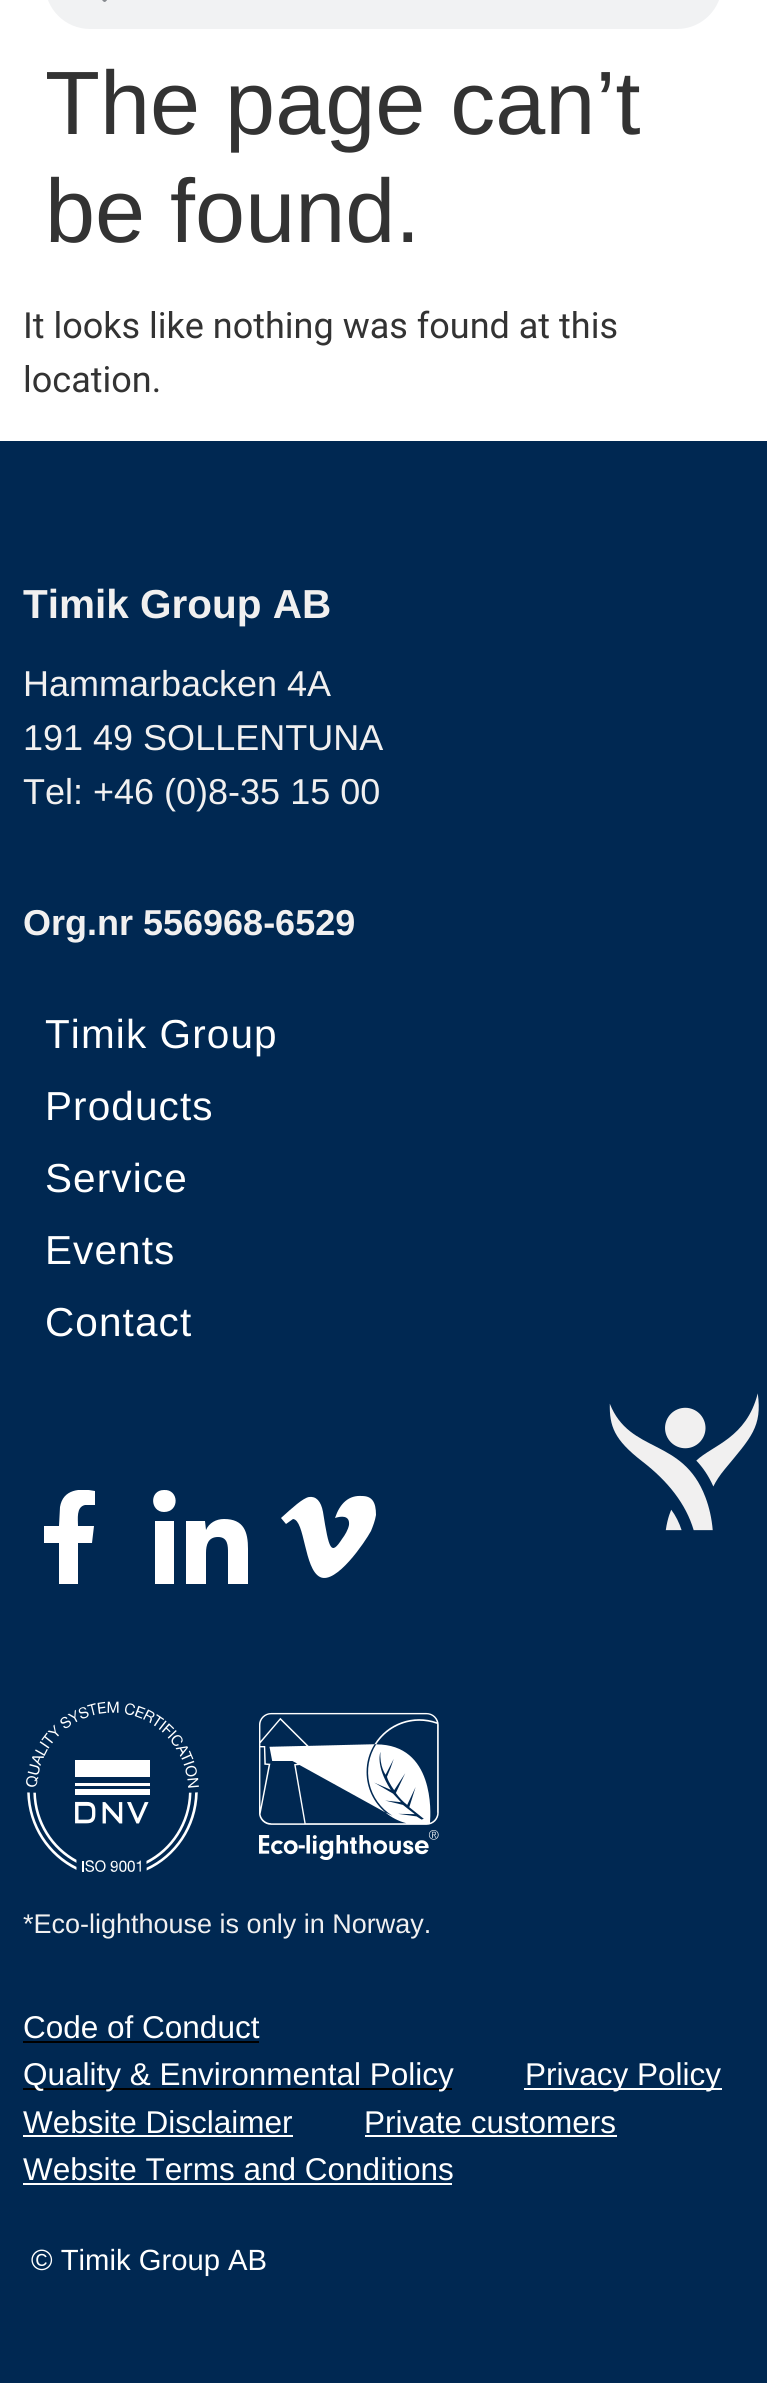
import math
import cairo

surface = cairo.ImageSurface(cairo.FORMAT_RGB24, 767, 2383)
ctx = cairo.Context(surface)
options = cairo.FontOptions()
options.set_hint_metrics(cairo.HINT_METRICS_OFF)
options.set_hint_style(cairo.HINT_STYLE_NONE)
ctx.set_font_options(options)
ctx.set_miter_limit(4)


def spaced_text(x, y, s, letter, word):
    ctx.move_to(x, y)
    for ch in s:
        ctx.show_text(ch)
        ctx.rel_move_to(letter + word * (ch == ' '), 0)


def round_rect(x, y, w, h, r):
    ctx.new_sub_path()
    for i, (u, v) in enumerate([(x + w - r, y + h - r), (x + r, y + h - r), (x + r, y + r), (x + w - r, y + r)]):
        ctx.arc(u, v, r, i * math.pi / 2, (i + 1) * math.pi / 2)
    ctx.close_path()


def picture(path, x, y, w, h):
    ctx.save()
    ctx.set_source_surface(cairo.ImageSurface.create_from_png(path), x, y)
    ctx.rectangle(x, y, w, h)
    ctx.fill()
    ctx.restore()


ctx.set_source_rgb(1, 1, 1)
ctx.paint()
ctx.set_source_rgb(0.945, 0.949, 0.953)
round_rect(45, -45, 677, 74, 45)
ctx.fill()
picture("img1.png", 102, 0, 5, 2)
ctx.select_font_face("Liberation Sans")
ctx.set_font_size(90)
ctx.set_source_rgb(0.2, 0.2, 0.2)
ctx.move_to(45, 134)
ctx.show_text("The page can’t")
ctx.move_to(45, 242)
ctx.show_text("be found.")
ctx.select_font_face("Roboto")
ctx.set_font_size(36)
ctx.move_to(23, 338)
ctx.show_text("It looks like nothing was found at this")
ctx.move_to(23, 392)
ctx.show_text("location.")
ctx.set_source_rgb(0, 0.157, 0.322)
ctx.rectangle(0, 441, 767, 1942)
ctx.fill()
picture("img2.png", 609, 1393, 150, 138)
ctx.select_font_face("Liberation Sans", cairo.FONT_SLANT_NORMAL, cairo.FONT_WEIGHT_BOLD)
ctx.set_font_size(40.5)
ctx.set_source_rgb(0.945, 0.941, 0.941)
ctx.move_to(23, 618)
ctx.show_text("Timik Group AB")
ctx.select_font_face("Liberation Sans")
ctx.set_font_size(36)
ctx.move_to(23, 696)
ctx.show_text("Hammarbacken 4A")
ctx.move_to(23, 750)
ctx.show_text("191 49 SOLLENTUNA")
ctx.move_to(23, 804)
ctx.show_text("Tel: +46 (0)8-35 15 00")
ctx.select_font_face("Liberation Sans", cairo.FONT_SLANT_NORMAL, cairo.FONT_WEIGHT_BOLD)
ctx.move_to(23, 935)
ctx.show_text("Org.nr 556968-6529")
ctx.select_font_face("Liberation Sans")
ctx.set_font_size(40.5)
ctx.set_source_rgb(1, 1, 1)
spaced_text(45, 1048, "Timik Group", 1.1, 0)
spaced_text(45, 1120, "Products", 1.1, 0)
spaced_text(45, 1192, "Service", 1.1, 0)
spaced_text(45, 1264, "Events", 1.1, 0)
spaced_text(45, 1336, "Contact", 1.1, 0)
ctx.save()
ctx.rectangle(23, 1490, 94, 94)
ctx.clip()
ctx.new_path()
ctx.move_to(92, 1543)
ctx.line_to(94, 1526)
ctx.line_to(78, 1526)
ctx.curve_to(78, 1519, 76, 1507, 85, 1505)
ctx.line_to(95, 1505)
ctx.line_to(95, 1491)
ctx.curve_to(80, 1488, 63, 1489, 60, 1507)
ctx.line_to(59, 1526)
ctx.line_to(44, 1526)
ctx.line_to(44, 1543)
ctx.line_to(59, 1543)
ctx.line_to(59, 1584)
ctx.line_to(78, 1584)
ctx.line_to(78, 1543)
ctx.close_path()
ctx.fill()
ctx.restore()
ctx.new_path()
ctx.move_to(174, 1584)
ctx.line_to(155, 1584)
ctx.line_to(155, 1521)
ctx.line_to(174, 1521)
ctx.close_path()
ctx.move_to(164, 1512)
ctx.curve_to(150, 1512, 149, 1490, 164, 1490)
ctx.curve_to(179, 1489, 180, 1512, 164, 1512)
ctx.close_path()
ctx.move_to(247, 1584)
ctx.line_to(228, 1584)
ctx.line_to(228, 1553)
ctx.curve_to(228, 1546, 228, 1537, 218, 1537)
ctx.curve_to(208, 1537, 206, 1545, 206, 1553)
ctx.line_to(206, 1584)
ctx.line_to(186, 1584)
ctx.line_to(186, 1521)
ctx.line_to(205, 1521)
ctx.line_to(206, 1530)
ctx.curve_to(209, 1523, 216, 1519, 224, 1519)
ctx.curve_to(244, 1519, 248, 1532, 248, 1549)
ctx.line_to(248, 1584)
ctx.close_path()
ctx.fill()
ctx.new_path()
ctx.move_to(376, 1515)
ctx.curve_to(375, 1521, 373, 1526, 371, 1531)
ctx.curve_to(365, 1542, 336, 1585, 320, 1577)
ctx.curve_to(304, 1569, 305, 1520, 293, 1519)
ctx.line_to(286, 1524)
ctx.line_to(281, 1518)
ctx.curve_to(292, 1508, 303, 1498, 309, 1497)
ctx.curve_to(316, 1496, 321, 1501, 323, 1512)
ctx.curve_to(329, 1550, 331, 1556, 342, 1539)
ctx.curve_to(345, 1535, 348, 1530, 349, 1525)
ctx.curve_to(350, 1515, 341, 1516, 335, 1518)
ctx.curve_to(340, 1503, 349, 1495, 362, 1496)
ctx.curve_to(372, 1496, 376, 1502, 376, 1515)
ctx.close_path()
ctx.fill()
picture("img3.png", 26, 1701, 173, 171)
picture("img4.png", 259, 1712, 180, 148)
ctx.set_font_size(27)
ctx.set_source_rgb(0.945, 0.941, 0.941)
ctx.move_to(23, 1933)
ctx.show_text("*Eco-lighthouse is only in Norway.")
ctx.set_font_size(31.5)
ctx.set_source_rgb(1, 1, 1)
ctx.move_to(23, 2038)
ctx.show_text("Code of Conduct")
ctx.set_source_rgb(0, 0, 0)
ctx.rectangle(23, 2041, 236, 2)
ctx.fill()
ctx.rectangle(23, 2088, 429, 2)
ctx.fill()
ctx.set_source_rgb(1, 1, 1)
ctx.move_to(23, 2085)
ctx.show_text("Quality & Environmental Policy")
ctx.rectangle(524, 2088, 198, 2)
ctx.fill()
ctx.move_to(525, 2085)
ctx.show_text("Privacy Policy")
ctx.move_to(23, 2133)
ctx.show_text("Website Disclaimer")
ctx.rectangle(23, 2135, 270, 2)
ctx.fill()
ctx.move_to(364, 2133)
ctx.show_text("Private customers")
ctx.rectangle(365, 2135, 252, 2)
ctx.fill()
ctx.move_to(23, 2180)
ctx.show_text("Website Terms and Conditions")
ctx.rectangle(23, 2183, 429, 2)
ctx.fill()
ctx.set_font_size(29.25)
ctx.move_to(31, 2270)
ctx.show_text("© Timik Group AB")
surface.write_to_png("page.png")
